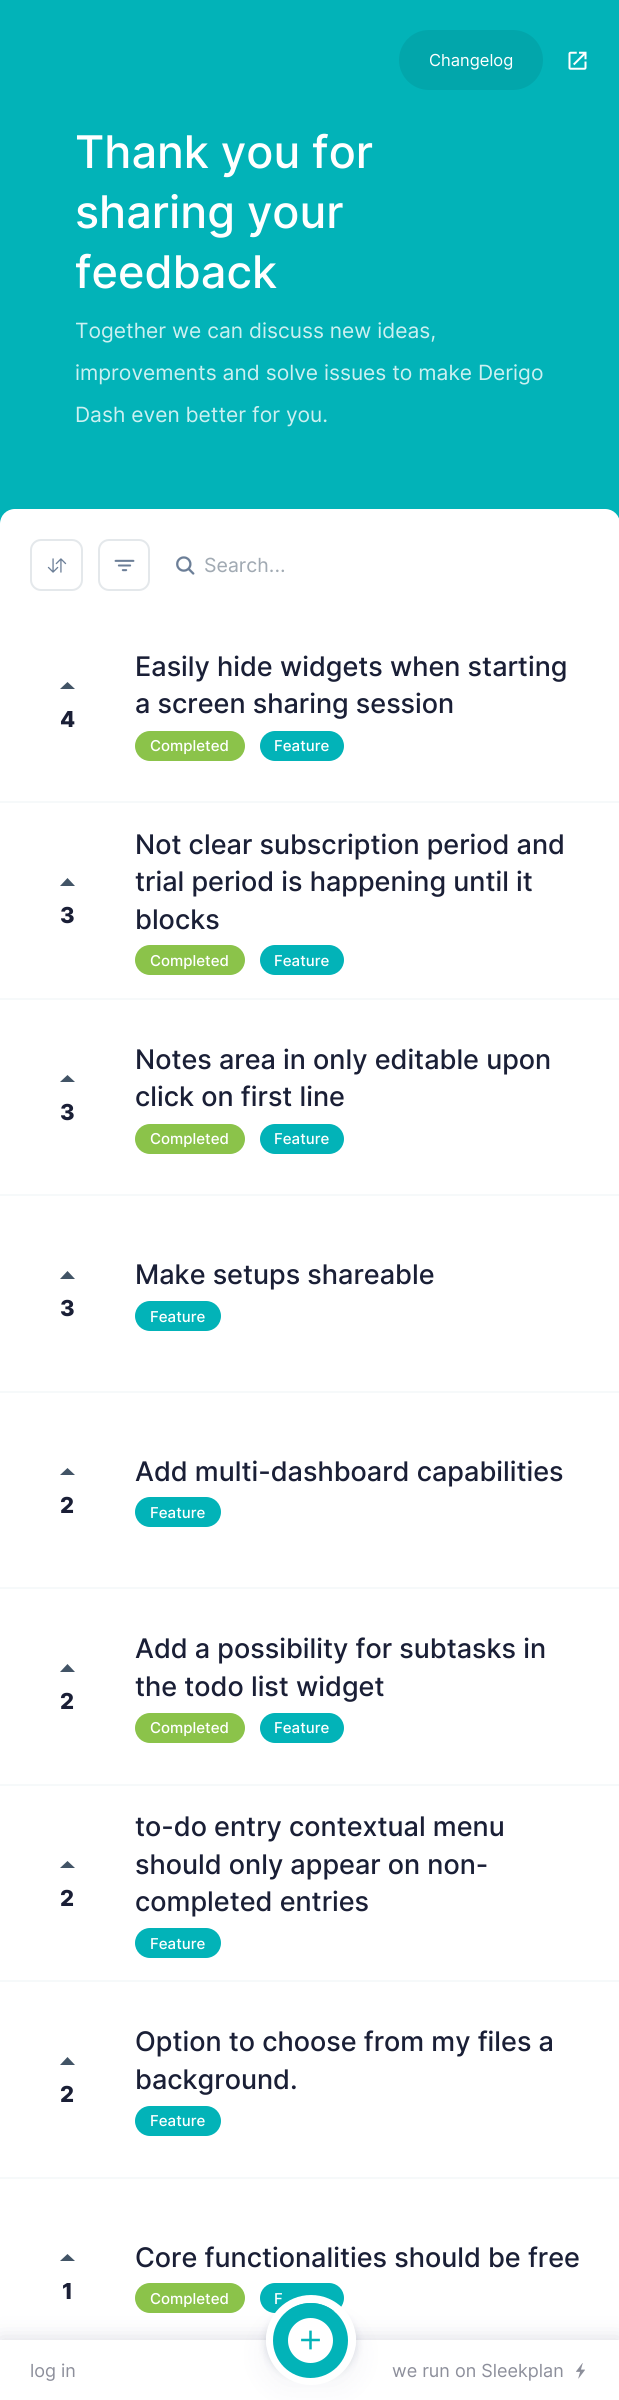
import math
import cairo

surface = cairo.ImageSurface(cairo.FORMAT_RGB24, 619, 2400)
ctx = cairo.Context(surface)
options = cairo.FontOptions()
options.set_hint_metrics(cairo.HINT_METRICS_OFF)
options.set_hint_style(cairo.HINT_STYLE_NONE)
ctx.set_font_options(options)
ctx.set_miter_limit(4)


def round_rect(x, y, w, h, r):
    ctx.new_sub_path()
    for i, (u, v) in enumerate([(x + w - r, y + h - r), (x + r, y + h - r), (x + r, y + r), (x + w - r, y + r)]):
        ctx.arc(u, v, r, i * math.pi / 2, (i + 1) * math.pi / 2)
    ctx.close_path()


def shadow(x, y, w, h, r, blur, alpha):
    ctx.push_group_with_content(cairo.CONTENT_ALPHA)
    ctx.set_operator(cairo.OPERATOR_SOURCE)
    for i in range(15, -16, -2):
        e = blur * i / 6
        if min(w, h) + 2 * e > 0:
            ctx.set_source_rgba(0, 0, 0, alpha * math.erfc((i - 1) / 8.5) / 2)
            round_rect(x - e, y - e, w + 2 * e, h + 2 * e, max(0, min(r + e + blur * .6, min(w, h) / 2 + e)))
            ctx.fill()
    ctx.mask(ctx.pop_group())


def picture(path, x, y, w, h):
    ctx.save()
    ctx.set_source_surface(cairo.ImageSurface.create_from_png(path), x, y)
    ctx.rectangle(x, y, w, h)
    ctx.fill()
    ctx.restore()


ctx.set_source_rgb(0.008, 0.702, 0.722)
ctx.paint()
ctx.set_source_rgb(0.008, 0.651, 0.671)
round_rect(399, 30, 144, 60, 30)
ctx.fill()
ctx.select_font_face("Inter")
ctx.set_font_size(16.5)
ctx.set_source_rgb(1, 1, 1)
ctx.move_to(429, 66)
ctx.show_text("Changelog")
picture("img1.png", 568, 51, 19, 19)
ctx.select_font_face("Inter Medium")
ctx.set_font_size(45)
ctx.move_to(75, 168)
ctx.show_text("Thank you for")
ctx.move_to(75, 228)
ctx.show_text("sharing your")
ctx.move_to(75, 288)
ctx.show_text("feedback")
ctx.select_font_face("Inter")
ctx.set_font_size(21)
ctx.set_source_rgb(0.8, 0.941, 0.945)
ctx.move_to(75, 338)
ctx.show_text("Together we can discuss new ideas,")
ctx.move_to(75, 380)
ctx.show_text("improvements and solve issues to make Derigo")
ctx.move_to(75, 422)
ctx.show_text("Dash even better for you.")
ctx.set_source_rgb(1, 1, 1)
ctx.new_path()
ctx.move_to(15, 509)
ctx.line_to(605, 509)
ctx.curve_to(613.5, 509, 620, 515.5, 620, 524)
ctx.line_to(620, 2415)
ctx.line_to(0, 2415)
ctx.line_to(0, 524)
ctx.curve_to(0, 515.5, 6.5, 509, 15, 509)
ctx.close_path()
ctx.fill()
round_rect(31, 540, 51, 50, 10)
ctx.set_source_rgb(0.894, 0.91, 0.918)
ctx.stroke()
picture("img2.png", 47, 558, 20, 15)
round_rect(99, 540, 50, 50, 10)
ctx.stroke()
picture("img3.png", 114, 559, 21, 13)
picture("img4.png", 176, 556, 19, 19)
ctx.select_font_face("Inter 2")
ctx.set_font_size(19.5)
ctx.set_source_rgb(0.631, 0.667, 0.702)
ctx.move_to(204, 572)
ctx.show_text("Search...")
ctx.set_source_rgb(0.961, 0.973, 0.98)
ctx.rectangle(0, 801, 619, 2)
ctx.fill()
ctx.set_source_rgb(0.259, 0.329, 0.4)
ctx.new_path()
ctx.move_to(60, 689)
ctx.line_to(67.5, 682)
ctx.line_to(75, 689)
ctx.close_path()
ctx.fill()
ctx.select_font_face("Inter ExtraBold")
ctx.set_font_size(22)
ctx.set_source_rgb(0.102, 0.122, 0.212)
ctx.move_to(60, 727)
ctx.show_text("4")
ctx.select_font_face("Inter Medium")
ctx.set_font_size(27)
ctx.move_to(135, 676)
ctx.show_text("Easily hide widgets when starting")
ctx.move_to(135, 713)
ctx.show_text("a screen sharing session")
ctx.set_source_rgb(0.545, 0.765, 0.29)
round_rect(135, 731, 110, 30, 15)
ctx.fill()
ctx.set_font_size(15)
ctx.set_source_rgb(1, 1, 1)
ctx.move_to(150, 751)
ctx.show_text("Completed")
ctx.set_source_rgb(0.008, 0.702, 0.722)
round_rect(260, 731, 84, 30, 15)
ctx.fill()
ctx.set_source_rgb(1, 1, 1)
ctx.move_to(274, 751)
ctx.show_text("Feature")
ctx.set_source_rgb(0.961, 0.973, 0.98)
ctx.rectangle(0, 998, 619, 2)
ctx.fill()
ctx.set_source_rgb(0.259, 0.329, 0.4)
ctx.new_path()
ctx.move_to(60, 886)
ctx.line_to(67.5, 878)
ctx.line_to(75, 886)
ctx.close_path()
ctx.fill()
ctx.select_font_face("Inter ExtraBold")
ctx.set_font_size(22)
ctx.set_source_rgb(0.102, 0.122, 0.212)
ctx.move_to(60, 923)
ctx.show_text("3")
ctx.select_font_face("Inter Medium")
ctx.set_font_size(27)
ctx.move_to(135, 854)
ctx.show_text("Not clear subscription period and")
ctx.move_to(135, 891)
ctx.show_text("trial period is happening until it")
ctx.move_to(135, 929)
ctx.show_text("blocks")
ctx.set_source_rgb(0.545, 0.765, 0.29)
round_rect(135, 945, 110, 30, 15)
ctx.fill()
ctx.set_font_size(15)
ctx.set_source_rgb(1, 1, 1)
ctx.move_to(150, 966)
ctx.show_text("Completed")
ctx.set_source_rgb(0.008, 0.702, 0.722)
round_rect(260, 945, 84, 30, 15)
ctx.fill()
ctx.set_source_rgb(1, 1, 1)
ctx.move_to(274, 966)
ctx.show_text("Feature")
ctx.set_source_rgb(0.961, 0.973, 0.98)
ctx.rectangle(0, 1194, 619, 2)
ctx.fill()
ctx.set_source_rgb(0.259, 0.329, 0.4)
ctx.new_path()
ctx.move_to(60, 1082)
ctx.line_to(67.5, 1075)
ctx.line_to(75, 1082)
ctx.close_path()
ctx.fill()
ctx.select_font_face("Inter ExtraBold")
ctx.set_font_size(22)
ctx.set_source_rgb(0.102, 0.122, 0.212)
ctx.move_to(60, 1120)
ctx.show_text("3")
ctx.select_font_face("Inter Medium")
ctx.set_font_size(27)
ctx.move_to(135, 1069)
ctx.show_text("Notes area in only editable upon")
ctx.move_to(135, 1106)
ctx.show_text("click on first line")
ctx.set_source_rgb(0.545, 0.765, 0.29)
round_rect(135, 1124, 110, 30, 15)
ctx.fill()
ctx.set_font_size(15)
ctx.set_source_rgb(1, 1, 1)
ctx.move_to(150, 1144)
ctx.show_text("Completed")
ctx.set_source_rgb(0.008, 0.702, 0.722)
round_rect(260, 1124, 84, 30, 15)
ctx.fill()
ctx.set_source_rgb(1, 1, 1)
ctx.move_to(274, 1144)
ctx.show_text("Feature")
ctx.set_source_rgb(0.961, 0.973, 0.98)
ctx.rectangle(0, 1391, 619, 2)
ctx.fill()
ctx.set_source_rgb(0.259, 0.329, 0.4)
ctx.new_path()
ctx.move_to(60, 1279)
ctx.line_to(67.5, 1271)
ctx.line_to(75, 1279)
ctx.close_path()
ctx.fill()
ctx.select_font_face("Inter ExtraBold")
ctx.set_font_size(22)
ctx.set_source_rgb(0.102, 0.122, 0.212)
ctx.move_to(60, 1316)
ctx.show_text("3")
ctx.select_font_face("Inter Medium")
ctx.set_font_size(27)
ctx.move_to(135, 1284)
ctx.show_text("Make setups shareable")
ctx.set_source_rgb(0.008, 0.702, 0.722)
round_rect(135, 1301, 86, 30, 15)
ctx.fill()
ctx.set_font_size(15)
ctx.set_source_rgb(1, 1, 1)
ctx.move_to(150, 1322)
ctx.show_text("Feature")
ctx.set_source_rgb(0.961, 0.973, 0.98)
ctx.rectangle(0, 1587, 619, 2)
ctx.fill()
ctx.set_source_rgb(0.259, 0.329, 0.4)
ctx.new_path()
ctx.move_to(60, 1475)
ctx.line_to(67.5, 1468)
ctx.line_to(75, 1475)
ctx.close_path()
ctx.fill()
ctx.select_font_face("Inter ExtraBold")
ctx.set_font_size(22)
ctx.set_source_rgb(0.102, 0.122, 0.212)
ctx.move_to(60, 1513)
ctx.show_text("2")
ctx.select_font_face("Inter Medium")
ctx.set_font_size(27)
ctx.move_to(135, 1481)
ctx.show_text("Add multi-dashboard capabilities")
ctx.set_source_rgb(0.008, 0.702, 0.722)
round_rect(135, 1497, 86, 30, 15)
ctx.fill()
ctx.set_font_size(15)
ctx.set_source_rgb(1, 1, 1)
ctx.move_to(150, 1518)
ctx.show_text("Feature")
ctx.set_source_rgb(0.961, 0.973, 0.98)
ctx.rectangle(0, 1784, 619, 2)
ctx.fill()
ctx.set_source_rgb(0.259, 0.329, 0.4)
ctx.new_path()
ctx.move_to(60, 1672)
ctx.line_to(67.5, 1664)
ctx.line_to(75, 1672)
ctx.close_path()
ctx.fill()
ctx.select_font_face("Inter ExtraBold")
ctx.set_font_size(22)
ctx.set_source_rgb(0.102, 0.122, 0.212)
ctx.move_to(60, 1709)
ctx.show_text("2")
ctx.select_font_face("Inter Medium")
ctx.set_font_size(27)
ctx.move_to(135, 1658)
ctx.show_text("Add a possibility for subtasks in")
ctx.move_to(135, 1696)
ctx.show_text("the todo list widget")
ctx.set_source_rgb(0.545, 0.765, 0.29)
round_rect(135, 1713, 110, 30, 15)
ctx.fill()
ctx.set_font_size(15)
ctx.set_source_rgb(1, 1, 1)
ctx.move_to(150, 1733)
ctx.show_text("Completed")
ctx.set_source_rgb(0.008, 0.702, 0.722)
round_rect(260, 1713, 84, 30, 15)
ctx.fill()
ctx.set_source_rgb(1, 1, 1)
ctx.move_to(274, 1733)
ctx.show_text("Feature")
ctx.set_source_rgb(0.961, 0.973, 0.98)
ctx.rectangle(0, 1980, 619, 2)
ctx.fill()
ctx.set_source_rgb(0.259, 0.329, 0.4)
ctx.new_path()
ctx.move_to(60, 1868)
ctx.line_to(67.5, 1861)
ctx.line_to(75, 1868)
ctx.close_path()
ctx.fill()
ctx.select_font_face("Inter ExtraBold")
ctx.set_font_size(22)
ctx.set_source_rgb(0.102, 0.122, 0.212)
ctx.move_to(60, 1906)
ctx.show_text("2")
ctx.select_font_face("Inter Medium")
ctx.set_font_size(27)
ctx.move_to(135, 1836)
ctx.show_text("to-do entry contextual menu")
ctx.move_to(135, 1874)
ctx.show_text("should only appear on non-")
ctx.move_to(135, 1911)
ctx.show_text("completed entries")
ctx.set_source_rgb(0.008, 0.702, 0.722)
round_rect(135, 1928, 86, 30, 15)
ctx.fill()
ctx.set_font_size(15)
ctx.set_source_rgb(1, 1, 1)
ctx.move_to(150, 1949)
ctx.show_text("Feature")
ctx.set_source_rgb(0.961, 0.973, 0.98)
ctx.rectangle(0, 2177, 619, 2)
ctx.fill()
ctx.set_source_rgb(0.259, 0.329, 0.4)
ctx.new_path()
ctx.move_to(60, 2065)
ctx.line_to(67.5, 2057)
ctx.line_to(75, 2065)
ctx.close_path()
ctx.fill()
ctx.select_font_face("Inter ExtraBold")
ctx.set_font_size(22)
ctx.set_source_rgb(0.102, 0.122, 0.212)
ctx.move_to(60, 2102)
ctx.show_text("2")
ctx.select_font_face("Inter Medium")
ctx.set_font_size(27)
ctx.move_to(135, 2051)
ctx.show_text("Option to choose from my files a")
ctx.move_to(135, 2089)
ctx.show_text("background.")
ctx.set_source_rgb(0.008, 0.702, 0.722)
round_rect(135, 2106, 86, 30, 15)
ctx.fill()
ctx.set_font_size(15)
ctx.set_source_rgb(1, 1, 1)
ctx.move_to(150, 2126)
ctx.show_text("Feature")
ctx.set_source_rgb(0.259, 0.329, 0.4)
ctx.new_path()
ctx.move_to(60, 2261)
ctx.line_to(67.5, 2254)
ctx.line_to(75, 2261)
ctx.close_path()
ctx.fill()
ctx.select_font_face("Inter ExtraBold")
ctx.set_font_size(22)
ctx.set_source_rgb(0.102, 0.122, 0.212)
ctx.move_to(62, 2299)
ctx.show_text("1")
ctx.select_font_face("Inter Medium")
ctx.set_font_size(27)
ctx.move_to(135, 2267)
ctx.show_text("Core functionalities should be free")
ctx.set_source_rgb(0.545, 0.765, 0.29)
round_rect(135, 2283, 110, 30, 15)
ctx.fill()
ctx.set_font_size(15)
ctx.set_source_rgb(1, 1, 1)
ctx.move_to(150, 2304)
ctx.show_text("Completed")
ctx.set_source_rgb(0.008, 0.702, 0.722)
round_rect(260, 2283, 84, 30, 15)
ctx.fill()
ctx.set_source_rgb(1, 1, 1)
ctx.move_to(274, 2304)
ctx.show_text("F")
ctx.set_source_rgb(0.196, 0.196, 0.365)
shadow(0, 2340, 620, 60, 0, 11, 0.18)
ctx.set_source_rgb(1, 1, 1)
ctx.rectangle(0, 2340, 619, 60)
ctx.fill()
ctx.set_source_rgb(0, 0.082, 0.251)
shadow(266, 2325, 90, 60, 30, 15, 0.05)
shadow(266, 2313, 90, 60, 30, 4.5, 0.14)
ctx.set_source_rgb(1, 1, 1)
round_rect(266, 2310, 90, 60, 30)
ctx.fill()
ctx.arc(311, 2340, 41, 0, 2 * math.pi)
ctx.set_line_width(8)
ctx.stroke()
ctx.arc(310.5, 2340.5, 30, 0, 2 * math.pi)
ctx.set_source_rgb(0.008, 0.702, 0.722)
ctx.set_line_width(15)
ctx.stroke()
picture("img5.png", 301, 2330, 19, 20)
ctx.select_font_face("Inter")
ctx.set_font_size(18)
ctx.set_source_rgb(0.553, 0.561, 0.608)
ctx.move_to(30, 2377)
ctx.show_text("log in")
ctx.move_to(392, 2377)
ctx.show_text("we run on Sleekplan")
picture("img6.png", 576, 2363, 9, 16)
surface.write_to_png("page.png")
